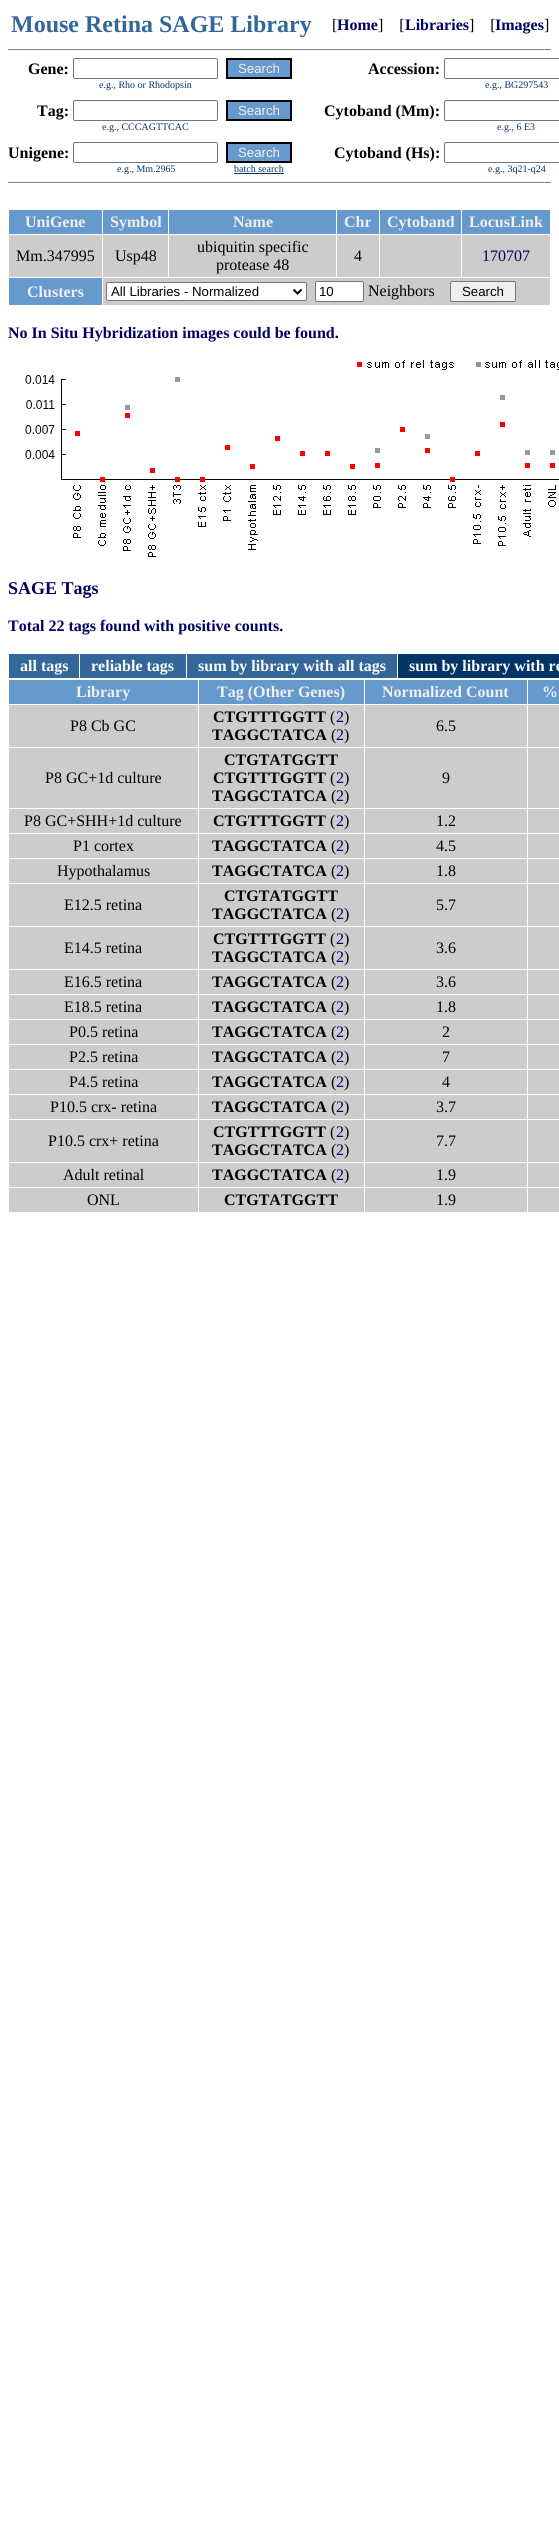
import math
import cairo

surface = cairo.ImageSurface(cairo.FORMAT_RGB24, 559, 2522)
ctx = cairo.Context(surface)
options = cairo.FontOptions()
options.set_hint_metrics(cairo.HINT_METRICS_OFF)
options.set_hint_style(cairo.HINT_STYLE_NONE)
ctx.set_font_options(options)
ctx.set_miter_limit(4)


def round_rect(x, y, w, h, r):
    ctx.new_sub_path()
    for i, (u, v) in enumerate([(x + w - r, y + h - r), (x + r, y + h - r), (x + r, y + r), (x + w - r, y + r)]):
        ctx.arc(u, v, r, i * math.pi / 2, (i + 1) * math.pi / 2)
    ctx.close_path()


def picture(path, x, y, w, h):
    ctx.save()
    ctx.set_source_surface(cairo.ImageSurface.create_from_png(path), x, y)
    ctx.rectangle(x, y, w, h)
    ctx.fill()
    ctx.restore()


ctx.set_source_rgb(1, 1, 1)
ctx.paint()
ctx.select_font_face("Liberation Serif", cairo.FONT_SLANT_NORMAL, cairo.FONT_WEIGHT_BOLD)
ctx.set_font_size(24)
ctx.set_source_rgb(0.2, 0.4, 0.6)
ctx.move_to(11, 32)
ctx.show_text("Mouse Retina SAGE Library")
ctx.select_font_face("Liberation Serif")
ctx.set_font_size(16)
ctx.set_source_rgb(0, 0, 0)
ctx.move_to(332, 30)
ctx.show_text("[")
ctx.select_font_face("Liberation Serif", cairo.FONT_SLANT_NORMAL, cairo.FONT_WEIGHT_BOLD)
ctx.set_source_rgb(0, 0, 0.4)
ctx.move_to(337, 30)
ctx.show_text("Home")
ctx.select_font_face("Liberation Serif")
ctx.set_source_rgb(0, 0, 0)
ctx.move_to(378, 30)
ctx.show_text("]    [")
ctx.select_font_face("Liberation Serif", cairo.FONT_SLANT_NORMAL, cairo.FONT_WEIGHT_BOLD)
ctx.set_source_rgb(0, 0, 0.4)
ctx.move_to(405, 30)
ctx.show_text("Libraries")
ctx.select_font_face("Liberation Serif")
ctx.set_source_rgb(0, 0, 0)
ctx.move_to(469, 30)
ctx.show_text("]    [")
ctx.select_font_face("Liberation Serif", cairo.FONT_SLANT_NORMAL, cairo.FONT_WEIGHT_BOLD)
ctx.set_source_rgb(0, 0, 0.4)
ctx.move_to(495, 30)
ctx.show_text("Images")
ctx.select_font_face("Liberation Serif")
ctx.set_source_rgb(0, 0, 0)
ctx.move_to(544, 30)
ctx.show_text("]")
ctx.set_source_rgb(0.502, 0.502, 0.502)
ctx.rectangle(8, 49, 543, 1)
ctx.fill()
ctx.select_font_face("Liberation Serif", cairo.FONT_SLANT_NORMAL, cairo.FONT_WEIGHT_BOLD)
ctx.set_source_rgb(0, 0, 0)
ctx.move_to(28, 74)
ctx.show_text("Gene:")
round_rect(73.5, 58.5, 144, 20, 1.5)
ctx.set_source_rgb(0.463, 0.463, 0.463)
ctx.set_line_width(1)
ctx.stroke()
ctx.set_source_rgb(0.4, 0.6, 0.8)
ctx.rectangle(227, 59, 64, 19)
ctx.fill_preserve()
ctx.set_source_rgb(0, 0, 0)
ctx.set_line_width(2)
ctx.stroke()
ctx.select_font_face("Liberation Sans")
ctx.set_font_size(13.25)
ctx.set_source_rgb(0.941, 0.941, 0.941)
ctx.move_to(238, 73)
ctx.show_text("Search")
ctx.select_font_face("Liberation Serif", cairo.FONT_SLANT_NORMAL, cairo.FONT_WEIGHT_BOLD)
ctx.set_font_size(16)
ctx.set_source_rgb(0, 0, 0)
ctx.move_to(368, 74)
ctx.show_text("Accession:")
round_rect(444.5, 58.5, 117, 20, 1.5)
ctx.set_source_rgb(0.463, 0.463, 0.463)
ctx.set_line_width(1)
ctx.stroke()
ctx.select_font_face("Liberation Serif")
ctx.set_font_size(10)
ctx.set_source_rgb(0, 0.2, 0.4)
ctx.move_to(99, 88)
ctx.show_text("e.g., Rho or Rhodopsin")
ctx.move_to(485, 88)
ctx.show_text("e.g., BG297543")
ctx.select_font_face("Liberation Serif", cairo.FONT_SLANT_NORMAL, cairo.FONT_WEIGHT_BOLD)
ctx.set_font_size(16)
ctx.set_source_rgb(0, 0, 0)
ctx.move_to(37, 116)
ctx.show_text("Tag:")
round_rect(73.5, 100.5, 144, 20, 1.5)
ctx.set_source_rgb(0.463, 0.463, 0.463)
ctx.stroke()
ctx.set_source_rgb(0.4, 0.6, 0.8)
ctx.rectangle(227, 101, 64, 19)
ctx.fill_preserve()
ctx.set_source_rgb(0, 0, 0)
ctx.set_line_width(2)
ctx.stroke()
ctx.select_font_face("Liberation Sans")
ctx.set_font_size(13.25)
ctx.set_source_rgb(0.941, 0.941, 0.941)
ctx.move_to(238, 115)
ctx.show_text("Search")
ctx.select_font_face("Liberation Serif", cairo.FONT_SLANT_NORMAL, cairo.FONT_WEIGHT_BOLD)
ctx.set_font_size(16)
ctx.set_source_rgb(0, 0, 0)
ctx.move_to(324, 116)
ctx.show_text("Cytoband (Mm):")
round_rect(444.5, 100.5, 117, 20, 1.5)
ctx.set_source_rgb(0.463, 0.463, 0.463)
ctx.set_line_width(1)
ctx.stroke()
ctx.select_font_face("Liberation Serif")
ctx.set_font_size(10)
ctx.set_source_rgb(0, 0.2, 0.4)
ctx.move_to(102, 130)
ctx.show_text("e.g., CCCAGTTCAC")
ctx.move_to(497, 130)
ctx.show_text("e.g., 6 E3")
ctx.select_font_face("Liberation Serif", cairo.FONT_SLANT_NORMAL, cairo.FONT_WEIGHT_BOLD)
ctx.set_font_size(16)
ctx.set_source_rgb(0, 0, 0)
ctx.move_to(8, 158)
ctx.show_text("Unigene:")
round_rect(73.5, 142.5, 144, 20, 1.5)
ctx.set_source_rgb(0.463, 0.463, 0.463)
ctx.stroke()
ctx.set_source_rgb(0.4, 0.6, 0.8)
ctx.rectangle(227, 143, 64, 19)
ctx.fill_preserve()
ctx.set_source_rgb(0, 0, 0)
ctx.set_line_width(2)
ctx.stroke()
ctx.select_font_face("Liberation Sans")
ctx.set_font_size(13.25)
ctx.set_source_rgb(0.941, 0.941, 0.941)
ctx.move_to(238, 157)
ctx.show_text("Search")
ctx.select_font_face("Liberation Serif", cairo.FONT_SLANT_NORMAL, cairo.FONT_WEIGHT_BOLD)
ctx.set_font_size(16)
ctx.set_source_rgb(0, 0, 0)
ctx.move_to(334, 158)
ctx.show_text("Cytoband (Hs):")
round_rect(444.5, 142.5, 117, 20, 1.5)
ctx.set_source_rgb(0.463, 0.463, 0.463)
ctx.set_line_width(1)
ctx.stroke()
ctx.select_font_face("Liberation Serif")
ctx.set_font_size(10)
ctx.set_source_rgb(0, 0.2, 0.4)
ctx.move_to(117, 172)
ctx.show_text("e.g., Mm.2965")
ctx.move_to(234, 172)
ctx.show_text("batch search")
ctx.rectangle(234, 173, 50, 1)
ctx.fill()
ctx.move_to(488, 172)
ctx.show_text("e.g., 3q21-q24")
ctx.set_source_rgb(0.502, 0.502, 0.502)
ctx.rectangle(8, 182, 543, 1)
ctx.fill()
ctx.set_source_rgb(0.4, 0.6, 0.8)
ctx.rectangle(9, 210, 93, 24)
ctx.fill()
ctx.select_font_face("Liberation Serif", cairo.FONT_SLANT_NORMAL, cairo.FONT_WEIGHT_BOLD)
ctx.set_font_size(16)
ctx.set_source_rgb(0.941, 0.941, 0.941)
ctx.move_to(25, 227)
ctx.show_text("UniGene")
ctx.set_source_rgb(0.4, 0.6, 0.8)
ctx.rectangle(103, 210, 65, 24)
ctx.fill()
ctx.set_source_rgb(0.941, 0.941, 0.941)
ctx.move_to(110, 227)
ctx.show_text("Symbol")
ctx.set_source_rgb(0.4, 0.6, 0.8)
ctx.rectangle(169, 210, 167, 24)
ctx.fill()
ctx.set_source_rgb(0.941, 0.941, 0.941)
ctx.move_to(233, 227)
ctx.show_text("Name")
ctx.set_source_rgb(0.4, 0.6, 0.8)
ctx.rectangle(337, 210, 42, 24)
ctx.fill()
ctx.set_source_rgb(0.941, 0.941, 0.941)
ctx.move_to(344, 227)
ctx.show_text("Chr")
ctx.set_source_rgb(0.4, 0.6, 0.8)
ctx.rectangle(380, 210, 81, 24)
ctx.fill()
ctx.set_source_rgb(0.941, 0.941, 0.941)
ctx.move_to(387, 227)
ctx.show_text("Cytoband")
ctx.set_source_rgb(0.4, 0.6, 0.8)
ctx.rectangle(462, 210, 88, 24)
ctx.fill()
ctx.set_source_rgb(0.941, 0.941, 0.941)
ctx.move_to(469, 227)
ctx.show_text("LocusLink")
ctx.set_source_rgb(0.8, 0.8, 0.8)
ctx.rectangle(9, 235, 93, 42)
ctx.fill()
ctx.select_font_face("Liberation Serif")
ctx.set_source_rgb(0, 0, 0)
ctx.move_to(16, 261)
ctx.show_text("Mm.347995")
ctx.set_source_rgb(0.8, 0.8, 0.8)
ctx.rectangle(103, 235, 65, 42)
ctx.fill()
ctx.set_source_rgb(0, 0, 0)
ctx.move_to(115, 261)
ctx.show_text("Usp48")
ctx.set_source_rgb(0.8, 0.8, 0.8)
ctx.rectangle(169, 235, 167, 42)
ctx.fill()
ctx.set_source_rgb(0, 0, 0)
ctx.move_to(197, 252)
ctx.show_text("ubiquitin specific")
ctx.move_to(216, 270)
ctx.show_text("protease 48")
ctx.set_source_rgb(0.8, 0.8, 0.8)
ctx.rectangle(337, 235, 42, 42)
ctx.fill()
ctx.set_source_rgb(0, 0, 0)
ctx.move_to(354, 261)
ctx.show_text("4")
ctx.set_source_rgb(0.8, 0.8, 0.8)
ctx.rectangle(380, 235, 81, 42)
ctx.fill()
ctx.rectangle(462, 235, 88, 42)
ctx.fill()
ctx.set_source_rgb(0, 0, 0.4)
ctx.move_to(482, 261)
ctx.show_text("170707")
ctx.set_source_rgb(0.4, 0.6, 0.8)
ctx.rectangle(9, 278, 93, 27)
ctx.fill()
ctx.select_font_face("Liberation Serif", cairo.FONT_SLANT_NORMAL, cairo.FONT_WEIGHT_BOLD)
ctx.set_source_rgb(0.941, 0.941, 0.941)
ctx.move_to(27, 297)
ctx.show_text("Clusters")
ctx.set_source_rgb(0.8, 0.8, 0.8)
ctx.rectangle(103, 278, 447, 27)
ctx.fill()
ctx.set_source_rgb(1, 1, 1)
round_rect(106.5, 282.5, 200, 18, 1.5)
ctx.fill_preserve()
ctx.set_source_rgb(0.463, 0.463, 0.463)
ctx.stroke()
ctx.new_path()
ctx.move_to(293.5, 289.5)
ctx.line_to(297.5, 293.5)
ctx.line_to(301.5, 289.5)
ctx.set_source_rgb(0, 0, 0)
ctx.set_line_width(2)
ctx.stroke()
ctx.select_font_face("Liberation Sans")
ctx.set_font_size(13.25)
ctx.move_to(111, 296)
ctx.show_text("All Libraries - Normalized")
ctx.set_source_rgb(1, 1, 1)
round_rect(315.5, 281.5, 48, 20, 1.5)
ctx.fill_preserve()
ctx.set_source_rgb(0.463, 0.463, 0.463)
ctx.set_line_width(1)
ctx.stroke()
ctx.set_source_rgb(0, 0, 0)
ctx.move_to(319, 296)
ctx.show_text("10")
ctx.select_font_face("Liberation Serif")
ctx.set_font_size(16)
ctx.move_to(368, 296)
ctx.show_text("Neighbors")
ctx.set_source_rgb(0.937, 0.937, 0.937)
round_rect(450.5, 281.5, 65, 20, 1.5)
ctx.fill_preserve()
ctx.set_source_rgb(0.463, 0.463, 0.463)
ctx.stroke()
ctx.select_font_face("Liberation Sans")
ctx.set_font_size(13.25)
ctx.set_source_rgb(0, 0, 0)
ctx.move_to(462, 296)
ctx.show_text("Search")
ctx.select_font_face("Liberation Serif", cairo.FONT_SLANT_NORMAL, cairo.FONT_WEIGHT_BOLD)
ctx.set_font_size(16)
ctx.set_source_rgb(0, 0, 0.4)
ctx.move_to(8, 338)
ctx.show_text("No In Situ Hybridization images could be found.")
picture("img1.png", 25, 360, 534, 197)
ctx.set_font_size(18)
ctx.move_to(8, 594)
ctx.show_text("SAGE Tags")
ctx.set_font_size(16)
ctx.move_to(8, 631)
ctx.show_text("Total 22 tags found with positive counts.")
ctx.set_source_rgb(0.2, 0.4, 0.6)
ctx.rectangle(9, 654, 70, 24)
ctx.fill()
ctx.set_source_rgb(1, 1, 1)
ctx.move_to(20, 671)
ctx.show_text("all tags")
ctx.set_source_rgb(0.2, 0.4, 0.6)
ctx.rectangle(80, 654, 106, 24)
ctx.fill()
ctx.set_source_rgb(1, 1, 1)
ctx.move_to(91, 671)
ctx.show_text("reliable tags")
ctx.set_source_rgb(0.2, 0.4, 0.6)
ctx.rectangle(187, 654, 210, 24)
ctx.fill()
ctx.set_source_rgb(1, 1, 1)
ctx.move_to(198, 671)
ctx.show_text("sum by library with all tags")
ctx.set_source_rgb(0, 0.2, 0.4)
ctx.rectangle(398, 654, 161, 24)
ctx.fill()
ctx.set_source_rgb(1, 1, 1)
ctx.move_to(409, 671)
ctx.show_text("sum by library with re")
ctx.set_source_rgb(0.4, 0.6, 0.8)
ctx.rectangle(9, 680, 189, 24)
ctx.fill()
ctx.set_source_rgb(0.941, 0.941, 0.941)
ctx.move_to(76, 697)
ctx.show_text("Library")
ctx.set_source_rgb(0.4, 0.6, 0.8)
ctx.rectangle(199, 680, 165, 24)
ctx.fill()
ctx.set_source_rgb(0.941, 0.941, 0.941)
ctx.move_to(217, 697)
ctx.show_text("Tag (Other Genes)")
ctx.set_source_rgb(0.4, 0.6, 0.8)
ctx.rectangle(365, 680, 162, 24)
ctx.fill()
ctx.set_source_rgb(0.941, 0.941, 0.941)
ctx.move_to(382, 697)
ctx.show_text("Normalized Count")
ctx.set_source_rgb(0.4, 0.6, 0.8)
ctx.rectangle(528, 680, 31, 24)
ctx.fill()
ctx.set_source_rgb(0.941, 0.941, 0.941)
ctx.move_to(542, 697)
ctx.show_text("%")
ctx.set_source_rgb(0.8, 0.8, 0.8)
ctx.rectangle(9, 705, 189, 42)
ctx.fill()
ctx.select_font_face("Liberation Serif")
ctx.set_source_rgb(0, 0, 0)
ctx.move_to(70, 731)
ctx.show_text("P8 Cb GC")
ctx.set_source_rgb(0.8, 0.8, 0.8)
ctx.rectangle(199, 705, 165, 42)
ctx.fill()
ctx.select_font_face("Liberation Serif", cairo.FONT_SLANT_NORMAL, cairo.FONT_WEIGHT_BOLD)
ctx.set_source_rgb(0, 0, 0)
ctx.move_to(213, 722)
ctx.show_text("CTGTTTGGTT")
ctx.select_font_face("Liberation Serif")
ctx.move_to(330, 722)
ctx.show_text("(")
ctx.set_source_rgb(0, 0, 0.4)
ctx.move_to(336, 722)
ctx.show_text("2")
ctx.set_source_rgb(0, 0, 0)
ctx.move_to(344, 722)
ctx.show_text(")")
ctx.select_font_face("Liberation Serif", cairo.FONT_SLANT_NORMAL, cairo.FONT_WEIGHT_BOLD)
ctx.move_to(212, 740)
ctx.show_text("TAGGCTATCA")
ctx.select_font_face("Liberation Serif")
ctx.move_to(331, 740)
ctx.show_text("(")
ctx.set_source_rgb(0, 0, 0.4)
ctx.move_to(336, 740)
ctx.show_text("2")
ctx.set_source_rgb(0, 0, 0)
ctx.move_to(344, 740)
ctx.show_text(")")
ctx.set_source_rgb(0.8, 0.8, 0.8)
ctx.rectangle(365, 705, 162, 42)
ctx.fill()
ctx.set_source_rgb(0, 0, 0)
ctx.move_to(436, 731)
ctx.show_text("6.5")
ctx.set_source_rgb(0.8, 0.8, 0.8)
ctx.rectangle(528, 705, 31, 42)
ctx.fill()
ctx.rectangle(9, 748, 189, 60)
ctx.fill()
ctx.set_source_rgb(0, 0, 0)
ctx.move_to(45, 783)
ctx.show_text("P8 GC+1d culture")
ctx.set_source_rgb(0.8, 0.8, 0.8)
ctx.rectangle(199, 748, 165, 60)
ctx.fill()
ctx.select_font_face("Liberation Serif", cairo.FONT_SLANT_NORMAL, cairo.FONT_WEIGHT_BOLD)
ctx.set_source_rgb(0, 0, 0)
ctx.move_to(224, 765)
ctx.show_text("CTGTATGGTT")
ctx.move_to(213, 783)
ctx.show_text("CTGTTTGGTT")
ctx.select_font_face("Liberation Serif")
ctx.move_to(330, 783)
ctx.show_text("(")
ctx.set_source_rgb(0, 0, 0.4)
ctx.move_to(336, 783)
ctx.show_text("2")
ctx.set_source_rgb(0, 0, 0)
ctx.move_to(344, 783)
ctx.show_text(")")
ctx.select_font_face("Liberation Serif", cairo.FONT_SLANT_NORMAL, cairo.FONT_WEIGHT_BOLD)
ctx.move_to(212, 801)
ctx.show_text("TAGGCTATCA")
ctx.select_font_face("Liberation Serif")
ctx.move_to(331, 801)
ctx.show_text("(")
ctx.set_source_rgb(0, 0, 0.4)
ctx.move_to(336, 801)
ctx.show_text("2")
ctx.set_source_rgb(0, 0, 0)
ctx.move_to(344, 801)
ctx.show_text(")")
ctx.set_source_rgb(0.8, 0.8, 0.8)
ctx.rectangle(365, 748, 162, 60)
ctx.fill()
ctx.set_source_rgb(0, 0, 0)
ctx.move_to(442, 783)
ctx.show_text("9")
ctx.set_source_rgb(0.8, 0.8, 0.8)
ctx.rectangle(528, 748, 31, 60)
ctx.fill()
ctx.rectangle(9, 809, 189, 24)
ctx.fill()
ctx.set_source_rgb(0, 0, 0)
ctx.move_to(24, 826)
ctx.show_text("P8 GC+SHH+1d culture")
ctx.set_source_rgb(0.8, 0.8, 0.8)
ctx.rectangle(199, 809, 165, 24)
ctx.fill()
ctx.select_font_face("Liberation Serif", cairo.FONT_SLANT_NORMAL, cairo.FONT_WEIGHT_BOLD)
ctx.set_source_rgb(0, 0, 0)
ctx.move_to(213, 826)
ctx.show_text("CTGTTTGGTT")
ctx.select_font_face("Liberation Serif")
ctx.move_to(330, 826)
ctx.show_text("(")
ctx.set_source_rgb(0, 0, 0.4)
ctx.move_to(336, 826)
ctx.show_text("2")
ctx.set_source_rgb(0, 0, 0)
ctx.move_to(344, 826)
ctx.show_text(")")
ctx.set_source_rgb(0.8, 0.8, 0.8)
ctx.rectangle(365, 809, 162, 24)
ctx.fill()
ctx.set_source_rgb(0, 0, 0)
ctx.move_to(436, 826)
ctx.show_text("1.2")
ctx.set_source_rgb(0.8, 0.8, 0.8)
ctx.rectangle(528, 809, 31, 24)
ctx.fill()
ctx.rectangle(9, 834, 189, 24)
ctx.fill()
ctx.set_source_rgb(0, 0, 0)
ctx.move_to(73, 851)
ctx.show_text("P1 cortex")
ctx.set_source_rgb(0.8, 0.8, 0.8)
ctx.rectangle(199, 834, 165, 24)
ctx.fill()
ctx.select_font_face("Liberation Serif", cairo.FONT_SLANT_NORMAL, cairo.FONT_WEIGHT_BOLD)
ctx.set_source_rgb(0, 0, 0)
ctx.move_to(212, 851)
ctx.show_text("TAGGCTATCA")
ctx.select_font_face("Liberation Serif")
ctx.move_to(331, 851)
ctx.show_text("(")
ctx.set_source_rgb(0, 0, 0.4)
ctx.move_to(336, 851)
ctx.show_text("2")
ctx.set_source_rgb(0, 0, 0)
ctx.move_to(344, 851)
ctx.show_text(")")
ctx.set_source_rgb(0.8, 0.8, 0.8)
ctx.rectangle(365, 834, 162, 24)
ctx.fill()
ctx.set_source_rgb(0, 0, 0)
ctx.move_to(436, 851)
ctx.show_text("4.5")
ctx.set_source_rgb(0.8, 0.8, 0.8)
ctx.rectangle(528, 834, 31, 24)
ctx.fill()
ctx.rectangle(9, 859, 189, 24)
ctx.fill()
ctx.set_source_rgb(0, 0, 0)
ctx.move_to(57, 876)
ctx.show_text("Hypothalamus")
ctx.set_source_rgb(0.8, 0.8, 0.8)
ctx.rectangle(199, 859, 165, 24)
ctx.fill()
ctx.select_font_face("Liberation Serif", cairo.FONT_SLANT_NORMAL, cairo.FONT_WEIGHT_BOLD)
ctx.set_source_rgb(0, 0, 0)
ctx.move_to(212, 876)
ctx.show_text("TAGGCTATCA")
ctx.select_font_face("Liberation Serif")
ctx.move_to(331, 876)
ctx.show_text("(")
ctx.set_source_rgb(0, 0, 0.4)
ctx.move_to(336, 876)
ctx.show_text("2")
ctx.set_source_rgb(0, 0, 0)
ctx.move_to(344, 876)
ctx.show_text(")")
ctx.set_source_rgb(0.8, 0.8, 0.8)
ctx.rectangle(365, 859, 162, 24)
ctx.fill()
ctx.set_source_rgb(0, 0, 0)
ctx.move_to(436, 876)
ctx.show_text("1.8")
ctx.set_source_rgb(0.8, 0.8, 0.8)
ctx.rectangle(528, 859, 31, 24)
ctx.fill()
ctx.rectangle(9, 884, 189, 42)
ctx.fill()
ctx.set_source_rgb(0, 0, 0)
ctx.move_to(64, 910)
ctx.show_text("E12.5 retina")
ctx.set_source_rgb(0.8, 0.8, 0.8)
ctx.rectangle(199, 884, 165, 42)
ctx.fill()
ctx.select_font_face("Liberation Serif", cairo.FONT_SLANT_NORMAL, cairo.FONT_WEIGHT_BOLD)
ctx.set_source_rgb(0, 0, 0)
ctx.move_to(224, 901)
ctx.show_text("CTGTATGGTT")
ctx.move_to(212, 919)
ctx.show_text("TAGGCTATCA")
ctx.select_font_face("Liberation Serif")
ctx.move_to(331, 919)
ctx.show_text("(")
ctx.set_source_rgb(0, 0, 0.4)
ctx.move_to(336, 919)
ctx.show_text("2")
ctx.set_source_rgb(0, 0, 0)
ctx.move_to(344, 919)
ctx.show_text(")")
ctx.set_source_rgb(0.8, 0.8, 0.8)
ctx.rectangle(365, 884, 162, 42)
ctx.fill()
ctx.set_source_rgb(0, 0, 0)
ctx.move_to(436, 910)
ctx.show_text("5.7")
ctx.set_source_rgb(0.8, 0.8, 0.8)
ctx.rectangle(528, 884, 31, 42)
ctx.fill()
ctx.rectangle(9, 927, 189, 42)
ctx.fill()
ctx.set_source_rgb(0, 0, 0)
ctx.move_to(64, 953)
ctx.show_text("E14.5 retina")
ctx.set_source_rgb(0.8, 0.8, 0.8)
ctx.rectangle(199, 927, 165, 42)
ctx.fill()
ctx.select_font_face("Liberation Serif", cairo.FONT_SLANT_NORMAL, cairo.FONT_WEIGHT_BOLD)
ctx.set_source_rgb(0, 0, 0)
ctx.move_to(213, 944)
ctx.show_text("CTGTTTGGTT")
ctx.select_font_face("Liberation Serif")
ctx.move_to(330, 944)
ctx.show_text("(")
ctx.set_source_rgb(0, 0, 0.4)
ctx.move_to(336, 944)
ctx.show_text("2")
ctx.set_source_rgb(0, 0, 0)
ctx.move_to(344, 944)
ctx.show_text(")")
ctx.select_font_face("Liberation Serif", cairo.FONT_SLANT_NORMAL, cairo.FONT_WEIGHT_BOLD)
ctx.move_to(212, 962)
ctx.show_text("TAGGCTATCA")
ctx.select_font_face("Liberation Serif")
ctx.move_to(331, 962)
ctx.show_text("(")
ctx.set_source_rgb(0, 0, 0.4)
ctx.move_to(336, 962)
ctx.show_text("2")
ctx.set_source_rgb(0, 0, 0)
ctx.move_to(344, 962)
ctx.show_text(")")
ctx.set_source_rgb(0.8, 0.8, 0.8)
ctx.rectangle(365, 927, 162, 42)
ctx.fill()
ctx.set_source_rgb(0, 0, 0)
ctx.move_to(436, 953)
ctx.show_text("3.6")
ctx.set_source_rgb(0.8, 0.8, 0.8)
ctx.rectangle(528, 927, 31, 42)
ctx.fill()
ctx.rectangle(9, 970, 189, 24)
ctx.fill()
ctx.set_source_rgb(0, 0, 0)
ctx.move_to(64, 987)
ctx.show_text("E16.5 retina")
ctx.set_source_rgb(0.8, 0.8, 0.8)
ctx.rectangle(199, 970, 165, 24)
ctx.fill()
ctx.select_font_face("Liberation Serif", cairo.FONT_SLANT_NORMAL, cairo.FONT_WEIGHT_BOLD)
ctx.set_source_rgb(0, 0, 0)
ctx.move_to(212, 987)
ctx.show_text("TAGGCTATCA")
ctx.select_font_face("Liberation Serif")
ctx.move_to(331, 987)
ctx.show_text("(")
ctx.set_source_rgb(0, 0, 0.4)
ctx.move_to(336, 987)
ctx.show_text("2")
ctx.set_source_rgb(0, 0, 0)
ctx.move_to(344, 987)
ctx.show_text(")")
ctx.set_source_rgb(0.8, 0.8, 0.8)
ctx.rectangle(365, 970, 162, 24)
ctx.fill()
ctx.set_source_rgb(0, 0, 0)
ctx.move_to(436, 987)
ctx.show_text("3.6")
ctx.set_source_rgb(0.8, 0.8, 0.8)
ctx.rectangle(528, 970, 31, 24)
ctx.fill()
ctx.rectangle(9, 995, 189, 24)
ctx.fill()
ctx.set_source_rgb(0, 0, 0)
ctx.move_to(64, 1012)
ctx.show_text("E18.5 retina")
ctx.set_source_rgb(0.8, 0.8, 0.8)
ctx.rectangle(199, 995, 165, 24)
ctx.fill()
ctx.select_font_face("Liberation Serif", cairo.FONT_SLANT_NORMAL, cairo.FONT_WEIGHT_BOLD)
ctx.set_source_rgb(0, 0, 0)
ctx.move_to(212, 1012)
ctx.show_text("TAGGCTATCA")
ctx.select_font_face("Liberation Serif")
ctx.move_to(331, 1012)
ctx.show_text("(")
ctx.set_source_rgb(0, 0, 0.4)
ctx.move_to(336, 1012)
ctx.show_text("2")
ctx.set_source_rgb(0, 0, 0)
ctx.move_to(344, 1012)
ctx.show_text(")")
ctx.set_source_rgb(0.8, 0.8, 0.8)
ctx.rectangle(365, 995, 162, 24)
ctx.fill()
ctx.set_source_rgb(0, 0, 0)
ctx.move_to(436, 1012)
ctx.show_text("1.8")
ctx.set_source_rgb(0.8, 0.8, 0.8)
ctx.rectangle(528, 995, 31, 24)
ctx.fill()
ctx.rectangle(9, 1020, 189, 24)
ctx.fill()
ctx.set_source_rgb(0, 0, 0)
ctx.move_to(69, 1037)
ctx.show_text("P0.5 retina")
ctx.set_source_rgb(0.8, 0.8, 0.8)
ctx.rectangle(199, 1020, 165, 24)
ctx.fill()
ctx.select_font_face("Liberation Serif", cairo.FONT_SLANT_NORMAL, cairo.FONT_WEIGHT_BOLD)
ctx.set_source_rgb(0, 0, 0)
ctx.move_to(212, 1037)
ctx.show_text("TAGGCTATCA")
ctx.select_font_face("Liberation Serif")
ctx.move_to(331, 1037)
ctx.show_text("(")
ctx.set_source_rgb(0, 0, 0.4)
ctx.move_to(336, 1037)
ctx.show_text("2")
ctx.set_source_rgb(0, 0, 0)
ctx.move_to(344, 1037)
ctx.show_text(")")
ctx.set_source_rgb(0.8, 0.8, 0.8)
ctx.rectangle(365, 1020, 162, 24)
ctx.fill()
ctx.set_source_rgb(0, 0, 0)
ctx.move_to(442, 1037)
ctx.show_text("2")
ctx.set_source_rgb(0.8, 0.8, 0.8)
ctx.rectangle(528, 1020, 31, 24)
ctx.fill()
ctx.rectangle(9, 1045, 189, 24)
ctx.fill()
ctx.set_source_rgb(0, 0, 0)
ctx.move_to(69, 1062)
ctx.show_text("P2.5 retina")
ctx.set_source_rgb(0.8, 0.8, 0.8)
ctx.rectangle(199, 1045, 165, 24)
ctx.fill()
ctx.select_font_face("Liberation Serif", cairo.FONT_SLANT_NORMAL, cairo.FONT_WEIGHT_BOLD)
ctx.set_source_rgb(0, 0, 0)
ctx.move_to(212, 1062)
ctx.show_text("TAGGCTATCA")
ctx.select_font_face("Liberation Serif")
ctx.move_to(331, 1062)
ctx.show_text("(")
ctx.set_source_rgb(0, 0, 0.4)
ctx.move_to(336, 1062)
ctx.show_text("2")
ctx.set_source_rgb(0, 0, 0)
ctx.move_to(344, 1062)
ctx.show_text(")")
ctx.set_source_rgb(0.8, 0.8, 0.8)
ctx.rectangle(365, 1045, 162, 24)
ctx.fill()
ctx.set_source_rgb(0, 0, 0)
ctx.move_to(442, 1062)
ctx.show_text("7")
ctx.set_source_rgb(0.8, 0.8, 0.8)
ctx.rectangle(528, 1045, 31, 24)
ctx.fill()
ctx.rectangle(9, 1070, 189, 24)
ctx.fill()
ctx.set_source_rgb(0, 0, 0)
ctx.move_to(69, 1087)
ctx.show_text("P4.5 retina")
ctx.set_source_rgb(0.8, 0.8, 0.8)
ctx.rectangle(199, 1070, 165, 24)
ctx.fill()
ctx.select_font_face("Liberation Serif", cairo.FONT_SLANT_NORMAL, cairo.FONT_WEIGHT_BOLD)
ctx.set_source_rgb(0, 0, 0)
ctx.move_to(212, 1087)
ctx.show_text("TAGGCTATCA")
ctx.select_font_face("Liberation Serif")
ctx.move_to(331, 1087)
ctx.show_text("(")
ctx.set_source_rgb(0, 0, 0.4)
ctx.move_to(336, 1087)
ctx.show_text("2")
ctx.set_source_rgb(0, 0, 0)
ctx.move_to(344, 1087)
ctx.show_text(")")
ctx.set_source_rgb(0.8, 0.8, 0.8)
ctx.rectangle(365, 1070, 162, 24)
ctx.fill()
ctx.set_source_rgb(0, 0, 0)
ctx.move_to(442, 1087)
ctx.show_text("4")
ctx.set_source_rgb(0.8, 0.8, 0.8)
ctx.rectangle(528, 1070, 31, 24)
ctx.fill()
ctx.rectangle(9, 1095, 189, 24)
ctx.fill()
ctx.set_source_rgb(0, 0, 0)
ctx.move_to(50, 1112)
ctx.show_text("P10.5 crx- retina")
ctx.set_source_rgb(0.8, 0.8, 0.8)
ctx.rectangle(199, 1095, 165, 24)
ctx.fill()
ctx.select_font_face("Liberation Serif", cairo.FONT_SLANT_NORMAL, cairo.FONT_WEIGHT_BOLD)
ctx.set_source_rgb(0, 0, 0)
ctx.move_to(212, 1112)
ctx.show_text("TAGGCTATCA")
ctx.select_font_face("Liberation Serif")
ctx.move_to(331, 1112)
ctx.show_text("(")
ctx.set_source_rgb(0, 0, 0.4)
ctx.move_to(336, 1112)
ctx.show_text("2")
ctx.set_source_rgb(0, 0, 0)
ctx.move_to(344, 1112)
ctx.show_text(")")
ctx.set_source_rgb(0.8, 0.8, 0.8)
ctx.rectangle(365, 1095, 162, 24)
ctx.fill()
ctx.set_source_rgb(0, 0, 0)
ctx.move_to(436, 1112)
ctx.show_text("3.7")
ctx.set_source_rgb(0.8, 0.8, 0.8)
ctx.rectangle(528, 1095, 31, 24)
ctx.fill()
ctx.rectangle(9, 1120, 189, 42)
ctx.fill()
ctx.set_source_rgb(0, 0, 0)
ctx.move_to(48, 1146)
ctx.show_text("P10.5 crx+ retina")
ctx.set_source_rgb(0.8, 0.8, 0.8)
ctx.rectangle(199, 1120, 165, 42)
ctx.fill()
ctx.select_font_face("Liberation Serif", cairo.FONT_SLANT_NORMAL, cairo.FONT_WEIGHT_BOLD)
ctx.set_source_rgb(0, 0, 0)
ctx.move_to(213, 1137)
ctx.show_text("CTGTTTGGTT")
ctx.select_font_face("Liberation Serif")
ctx.move_to(330, 1137)
ctx.show_text("(")
ctx.set_source_rgb(0, 0, 0.4)
ctx.move_to(336, 1137)
ctx.show_text("2")
ctx.set_source_rgb(0, 0, 0)
ctx.move_to(344, 1137)
ctx.show_text(")")
ctx.select_font_face("Liberation Serif", cairo.FONT_SLANT_NORMAL, cairo.FONT_WEIGHT_BOLD)
ctx.move_to(212, 1155)
ctx.show_text("TAGGCTATCA")
ctx.select_font_face("Liberation Serif")
ctx.move_to(331, 1155)
ctx.show_text("(")
ctx.set_source_rgb(0, 0, 0.4)
ctx.move_to(336, 1155)
ctx.show_text("2")
ctx.set_source_rgb(0, 0, 0)
ctx.move_to(344, 1155)
ctx.show_text(")")
ctx.set_source_rgb(0.8, 0.8, 0.8)
ctx.rectangle(365, 1120, 162, 42)
ctx.fill()
ctx.set_source_rgb(0, 0, 0)
ctx.move_to(436, 1146)
ctx.show_text("7.7")
ctx.set_source_rgb(0.8, 0.8, 0.8)
ctx.rectangle(528, 1120, 31, 42)
ctx.fill()
ctx.rectangle(9, 1163, 189, 24)
ctx.fill()
ctx.set_source_rgb(0, 0, 0)
ctx.move_to(63, 1180)
ctx.show_text("Adult retinal")
ctx.set_source_rgb(0.8, 0.8, 0.8)
ctx.rectangle(199, 1163, 165, 24)
ctx.fill()
ctx.select_font_face("Liberation Serif", cairo.FONT_SLANT_NORMAL, cairo.FONT_WEIGHT_BOLD)
ctx.set_source_rgb(0, 0, 0)
ctx.move_to(212, 1180)
ctx.show_text("TAGGCTATCA")
ctx.select_font_face("Liberation Serif")
ctx.move_to(331, 1180)
ctx.show_text("(")
ctx.set_source_rgb(0, 0, 0.4)
ctx.move_to(336, 1180)
ctx.show_text("2")
ctx.set_source_rgb(0, 0, 0)
ctx.move_to(344, 1180)
ctx.show_text(")")
ctx.set_source_rgb(0.8, 0.8, 0.8)
ctx.rectangle(365, 1163, 162, 24)
ctx.fill()
ctx.set_source_rgb(0, 0, 0)
ctx.move_to(436, 1180)
ctx.show_text("1.9")
ctx.set_source_rgb(0.8, 0.8, 0.8)
ctx.rectangle(528, 1163, 31, 24)
ctx.fill()
ctx.rectangle(9, 1188, 189, 24)
ctx.fill()
ctx.set_source_rgb(0, 0, 0)
ctx.move_to(87, 1205)
ctx.show_text("ONL")
ctx.set_source_rgb(0.8, 0.8, 0.8)
ctx.rectangle(199, 1188, 165, 24)
ctx.fill()
ctx.select_font_face("Liberation Serif", cairo.FONT_SLANT_NORMAL, cairo.FONT_WEIGHT_BOLD)
ctx.set_source_rgb(0, 0, 0)
ctx.move_to(224, 1205)
ctx.show_text("CTGTATGGTT")
ctx.set_source_rgb(0.8, 0.8, 0.8)
ctx.rectangle(365, 1188, 162, 24)
ctx.fill()
ctx.select_font_face("Liberation Serif")
ctx.set_source_rgb(0, 0, 0)
ctx.move_to(436, 1205)
ctx.show_text("1.9")
ctx.set_source_rgb(0.8, 0.8, 0.8)
ctx.rectangle(528, 1188, 31, 24)
ctx.fill()
surface.write_to_png("page.png")
